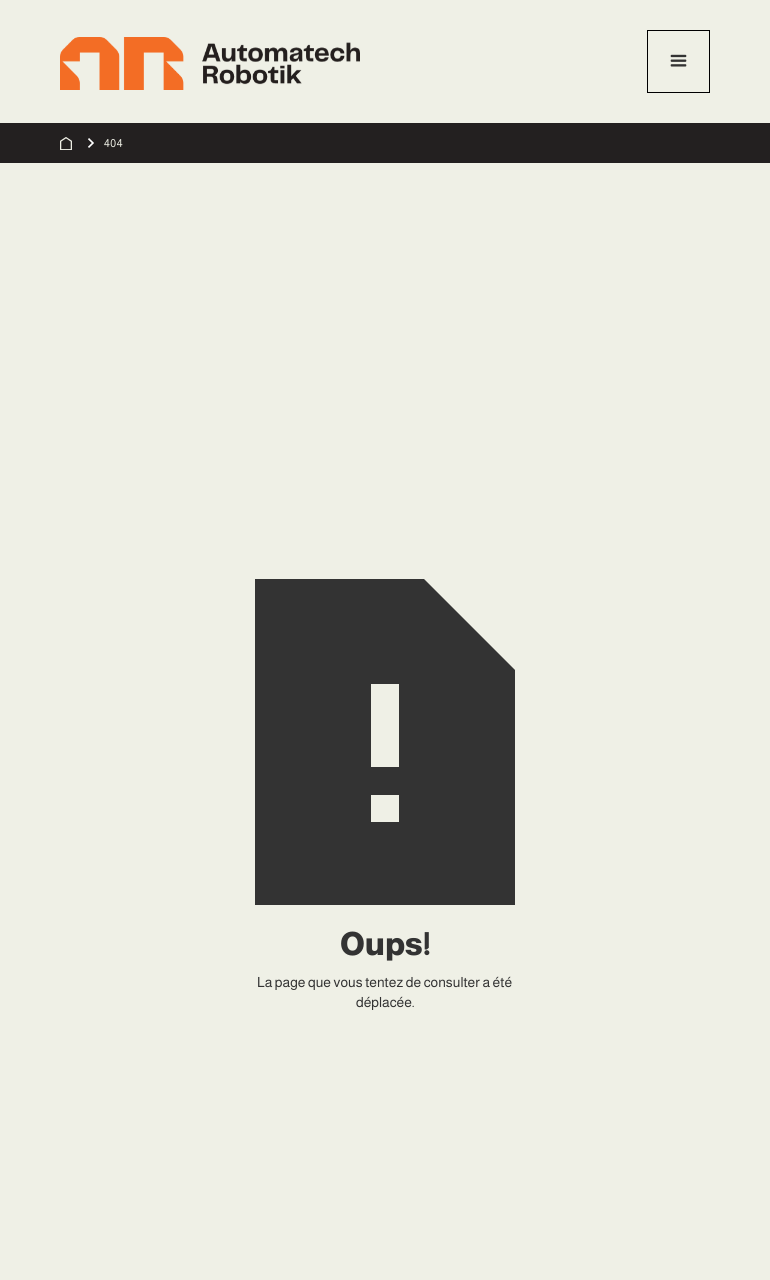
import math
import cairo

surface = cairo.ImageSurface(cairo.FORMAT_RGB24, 770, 1280)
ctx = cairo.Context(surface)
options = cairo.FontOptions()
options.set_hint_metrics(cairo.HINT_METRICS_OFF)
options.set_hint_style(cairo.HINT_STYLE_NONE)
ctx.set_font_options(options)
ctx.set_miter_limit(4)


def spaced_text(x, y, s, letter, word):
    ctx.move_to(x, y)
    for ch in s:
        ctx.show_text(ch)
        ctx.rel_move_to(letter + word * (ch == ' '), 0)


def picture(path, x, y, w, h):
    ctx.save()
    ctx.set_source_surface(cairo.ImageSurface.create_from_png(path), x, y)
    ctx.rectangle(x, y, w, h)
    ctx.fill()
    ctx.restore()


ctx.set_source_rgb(0.937, 0.941, 0.902)
ctx.paint()
picture("img1.png", 60, 37, 300, 53)
ctx.rectangle(647.5, 30.5, 62, 62)
ctx.set_source_rgb(0, 0, 0)
ctx.set_line_width(1)
ctx.stroke()
picture("img2.png", 670, 54, 17, 13)
ctx.set_source_rgb(0.137, 0.125, 0.125)
ctx.rectangle(0, 123, 770, 40)
ctx.fill()
picture("img3.png", 60, 137, 12, 13)
picture("img4.png", 88, 138, 6, 10)
ctx.select_font_face("Almarai")
ctx.set_font_size(11)
ctx.set_source_rgb(0.937, 0.941, 0.902)
spaced_text(104, 147, "404", 0.5, 0)
ctx.set_source_rgb(0.2, 0.2, 0.2)
ctx.set_fill_rule(cairo.FILL_RULE_EVEN_ODD)
ctx.new_path()
ctx.move_to(255, 579)
ctx.line_to(424, 579)
ctx.line_to(515, 670)
ctx.line_to(515, 905)
ctx.line_to(255, 905)
ctx.close_path()
ctx.move_to(371, 684)
ctx.line_to(399, 684)
ctx.line_to(399, 767)
ctx.line_to(371, 767)
ctx.close_path()
ctx.move_to(371, 795)
ctx.line_to(399, 795)
ctx.line_to(399, 822)
ctx.line_to(371, 822)
ctx.close_path()
ctx.fill()
ctx.select_font_face("Almarai ExtraBold")
ctx.set_font_size(32)
ctx.move_to(340, 955)
ctx.show_text("Oups!")
ctx.select_font_face("Almarai")
ctx.set_font_size(14)
ctx.move_to(257, 987)
ctx.show_text("La page que vous tentez de consulter a été")
ctx.move_to(356, 1007)
ctx.show_text("déplacée.")
surface.write_to_png("page.png")
